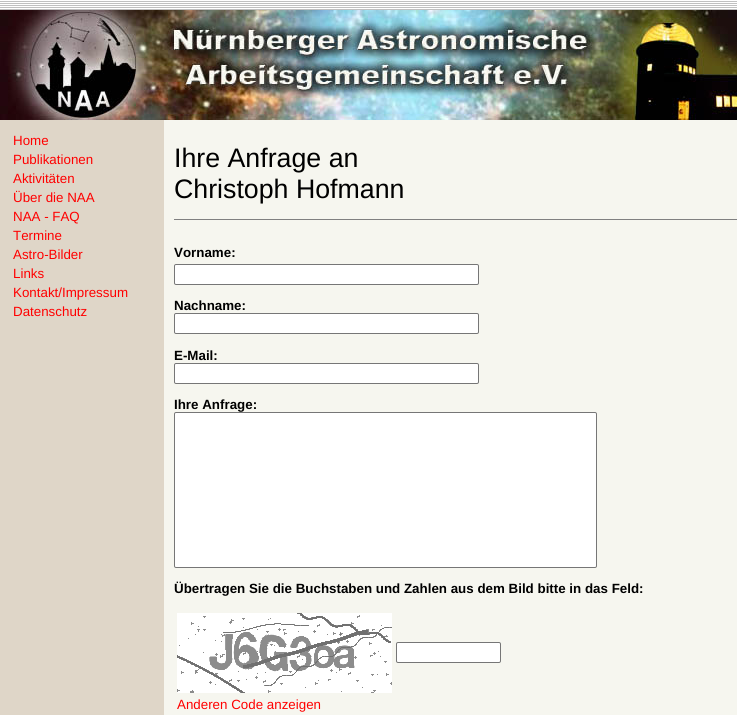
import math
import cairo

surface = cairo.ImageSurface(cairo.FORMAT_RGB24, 737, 715)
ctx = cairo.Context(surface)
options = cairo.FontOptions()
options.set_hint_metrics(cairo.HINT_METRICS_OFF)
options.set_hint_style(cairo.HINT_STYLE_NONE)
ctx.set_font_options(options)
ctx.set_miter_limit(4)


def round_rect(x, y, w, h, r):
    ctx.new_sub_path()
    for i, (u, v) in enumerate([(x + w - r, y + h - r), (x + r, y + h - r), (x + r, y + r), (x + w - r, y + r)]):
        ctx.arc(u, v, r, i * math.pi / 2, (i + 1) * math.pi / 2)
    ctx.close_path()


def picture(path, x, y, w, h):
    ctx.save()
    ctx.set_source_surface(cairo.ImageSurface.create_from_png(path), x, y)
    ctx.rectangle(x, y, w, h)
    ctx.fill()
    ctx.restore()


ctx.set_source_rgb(1, 1, 1)
ctx.paint()
picture("img1.png", 0, 1, 737, 9)
picture("img2.png", 0, 10, 737, 110)
ctx.set_source_rgb(0.875, 0.839, 0.784)
ctx.rectangle(0, 120, 164, 595)
ctx.fill()
ctx.select_font_face("Liberation Sans")
ctx.set_font_size(13.35)
ctx.set_source_rgb(1, 0, 0)
ctx.move_to(13, 145)
ctx.show_text("Home")
ctx.move_to(13, 164)
ctx.show_text("Publikationen")
ctx.move_to(13, 183)
ctx.show_text("Aktivitäten")
ctx.move_to(13, 202)
ctx.show_text("Über die NAA")
ctx.move_to(13, 221)
ctx.show_text("NAA - FAQ")
ctx.move_to(13, 240)
ctx.show_text("Termine")
ctx.move_to(13, 259)
ctx.show_text("Astro-Bilder")
ctx.move_to(13, 278)
ctx.show_text("Links")
ctx.move_to(13, 297)
ctx.show_text("Kontakt/Impressum")
ctx.move_to(13, 316)
ctx.show_text("Datenschutz")
ctx.set_source_rgb(0.961, 0.961, 0.937)
ctx.rectangle(164, 120, 573, 595)
ctx.fill()
ctx.set_font_size(26.75)
ctx.set_source_rgb(0, 0, 0)
ctx.move_to(174, 167)
ctx.show_text("Ihre Anfrage an")
ctx.move_to(174, 198)
ctx.show_text("Christoph Hofmann")
ctx.set_source_rgb(0.502, 0.502, 0.502)
ctx.rectangle(174, 219, 563, 1)
ctx.fill()
ctx.select_font_face("Liberation Sans", cairo.FONT_SLANT_NORMAL, cairo.FONT_WEIGHT_BOLD)
ctx.set_font_size(13.35)
ctx.set_source_rgb(0, 0, 0)
ctx.move_to(174, 257)
ctx.show_text("Vorname:")
ctx.set_source_rgb(1, 1, 1)
round_rect(174.5, 264.5, 304, 20, 1.5)
ctx.fill_preserve()
ctx.set_source_rgb(0.463, 0.463, 0.463)
ctx.set_line_width(1)
ctx.stroke()
ctx.set_source_rgb(0, 0, 0)
ctx.move_to(174, 310)
ctx.show_text("Nachname:")
ctx.set_source_rgb(1, 1, 1)
round_rect(174.5, 313.5, 304, 20, 1.5)
ctx.fill_preserve()
ctx.set_source_rgb(0.463, 0.463, 0.463)
ctx.stroke()
ctx.set_source_rgb(0, 0, 0)
ctx.move_to(174, 360)
ctx.show_text("E-Mail:")
ctx.set_source_rgb(1, 1, 1)
round_rect(174.5, 363.5, 304, 20, 1.5)
ctx.fill_preserve()
ctx.set_source_rgb(0.463, 0.463, 0.463)
ctx.stroke()
ctx.set_source_rgb(0, 0, 0)
ctx.move_to(174, 409)
ctx.show_text("Ihre Anfrage:")
ctx.set_source_rgb(1, 1, 1)
round_rect(174.5, 412.5, 422, 155, 1.5)
ctx.fill_preserve()
ctx.set_source_rgb(0.463, 0.463, 0.463)
ctx.stroke()
ctx.set_source_rgb(0, 0, 0)
ctx.move_to(174, 593)
ctx.show_text("Übertragen Sie die Buchstaben und Zahlen aus dem Bild bitte in das Feld:")
picture("img3.png", 177, 613, 215, 80)
ctx.set_source_rgb(1, 1, 1)
round_rect(396.5, 642.5, 104, 20, 1.5)
ctx.fill_preserve()
ctx.set_source_rgb(0.463, 0.463, 0.463)
ctx.stroke()
ctx.select_font_face("Liberation Sans")
ctx.set_source_rgb(1, 0, 0)
ctx.move_to(177, 709)
ctx.show_text("Anderen Code anzeigen")
surface.write_to_png("page.png")
